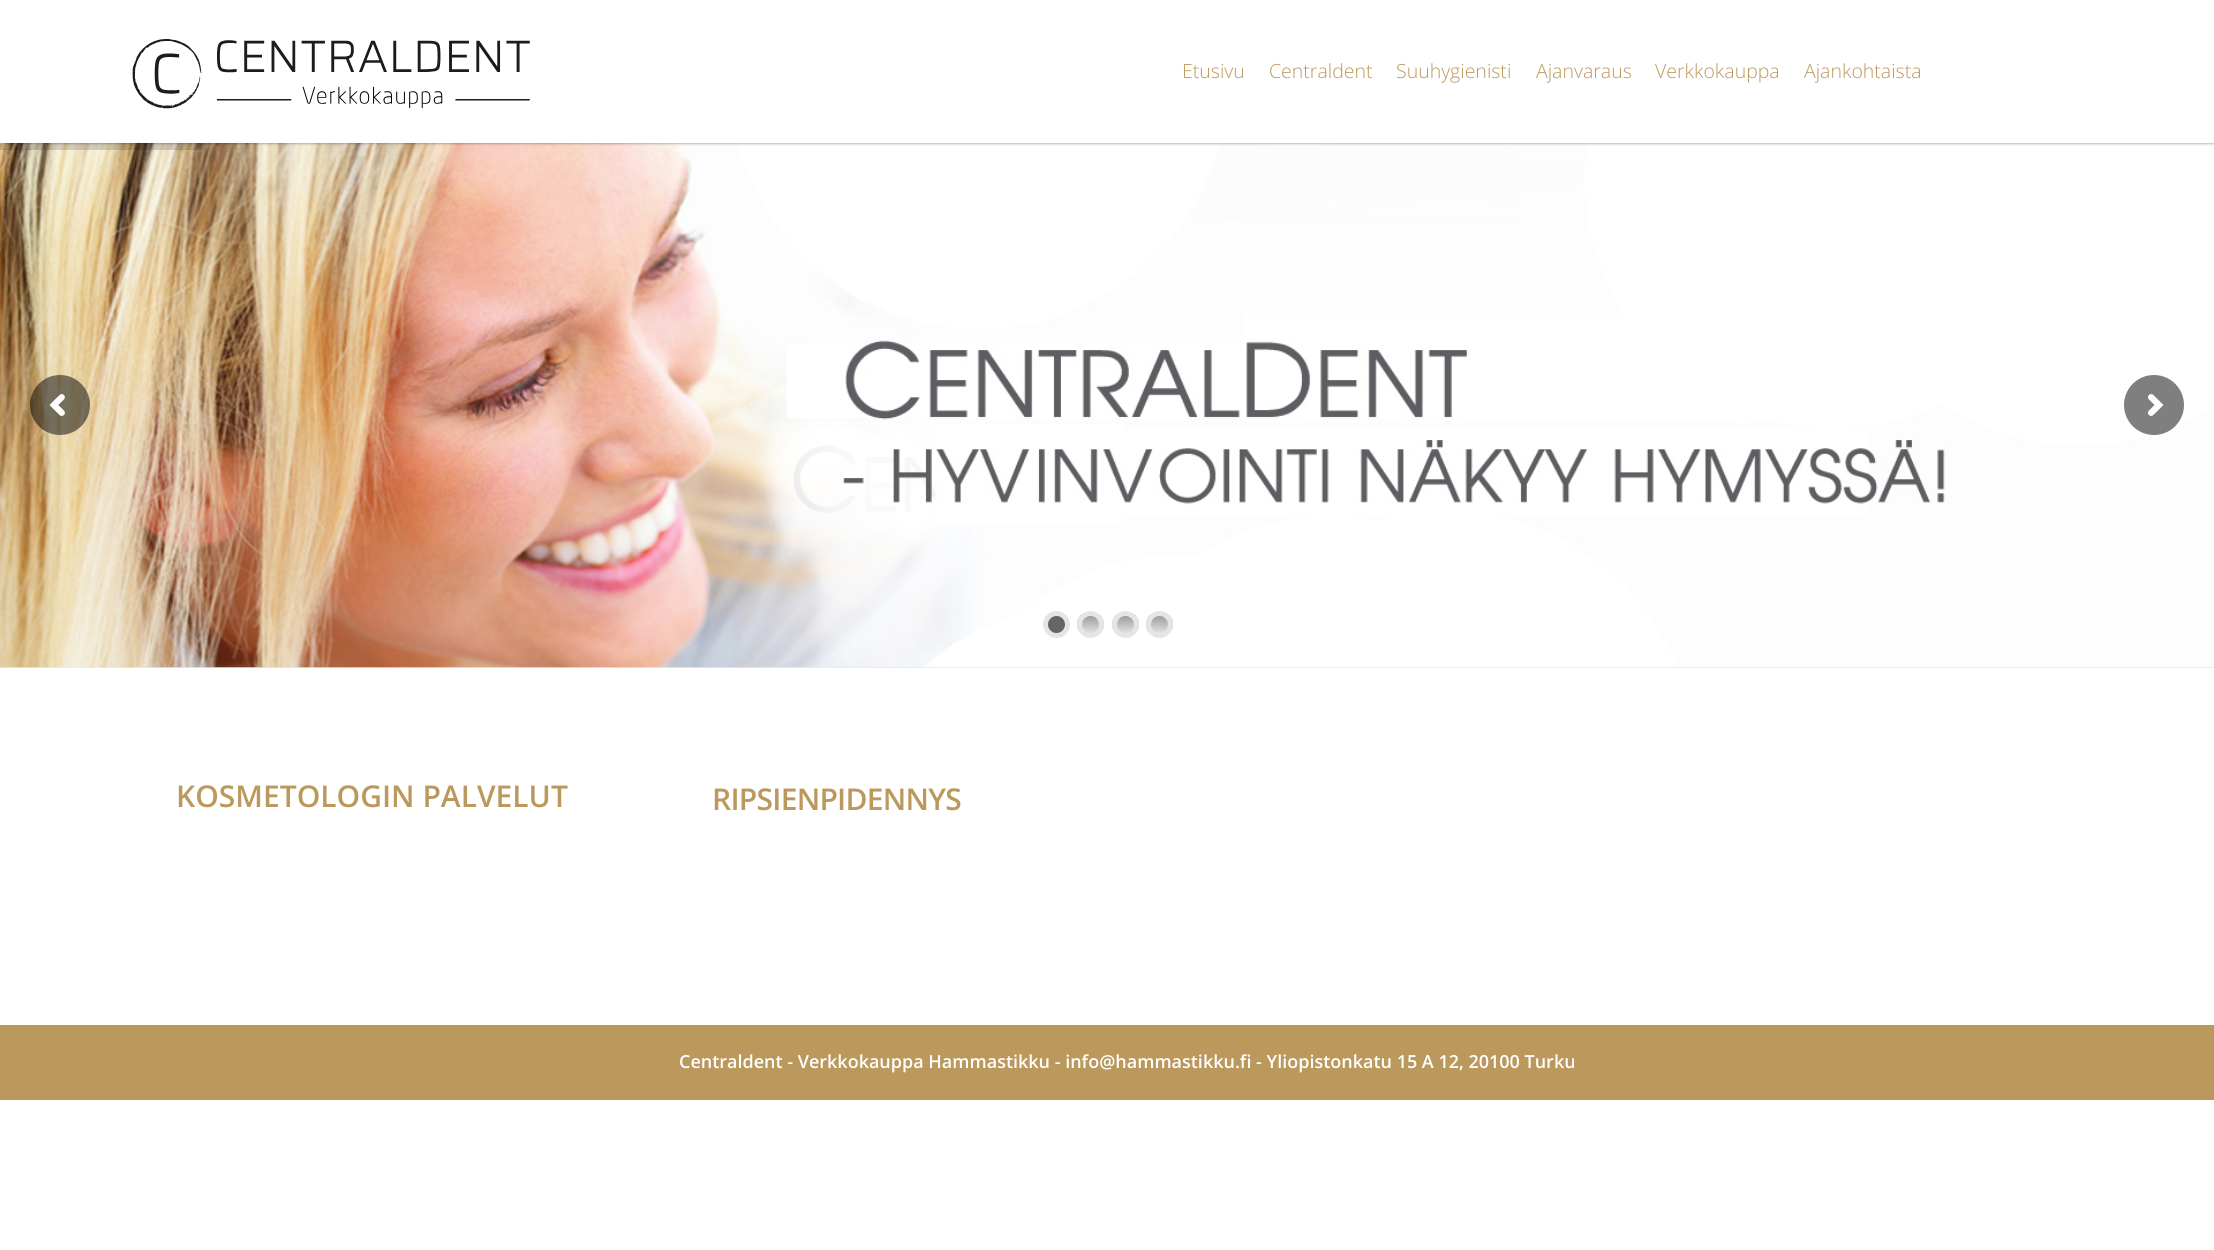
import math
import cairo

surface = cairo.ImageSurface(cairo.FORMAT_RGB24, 2214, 1250)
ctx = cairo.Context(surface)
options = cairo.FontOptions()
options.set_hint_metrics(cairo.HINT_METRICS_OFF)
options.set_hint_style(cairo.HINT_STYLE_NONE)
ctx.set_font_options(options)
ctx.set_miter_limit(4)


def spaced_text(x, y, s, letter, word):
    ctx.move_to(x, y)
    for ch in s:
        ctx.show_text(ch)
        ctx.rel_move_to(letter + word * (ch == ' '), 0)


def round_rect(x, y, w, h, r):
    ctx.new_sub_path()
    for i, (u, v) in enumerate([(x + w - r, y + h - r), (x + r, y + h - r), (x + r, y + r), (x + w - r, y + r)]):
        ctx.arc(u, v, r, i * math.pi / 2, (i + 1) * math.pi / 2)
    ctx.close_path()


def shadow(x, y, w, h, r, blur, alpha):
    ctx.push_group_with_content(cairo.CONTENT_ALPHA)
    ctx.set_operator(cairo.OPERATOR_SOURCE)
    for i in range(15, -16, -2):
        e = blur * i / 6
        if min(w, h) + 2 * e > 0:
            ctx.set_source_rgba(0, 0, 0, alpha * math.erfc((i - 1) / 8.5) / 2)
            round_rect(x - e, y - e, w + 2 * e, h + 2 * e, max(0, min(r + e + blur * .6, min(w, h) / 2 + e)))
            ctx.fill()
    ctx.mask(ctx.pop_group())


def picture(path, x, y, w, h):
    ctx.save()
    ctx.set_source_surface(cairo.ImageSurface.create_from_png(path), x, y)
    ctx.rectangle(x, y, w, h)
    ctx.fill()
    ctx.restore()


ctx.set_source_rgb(1, 1, 1)
ctx.paint()
ctx.set_source_rgb(0.914, 0.914, 0.914)
ctx.rectangle(0, 667, 2214, 1)
ctx.fill()
picture("img2.png", 0, 142, 2214, 526)
ctx.set_source_rgba(0, 0, 0, 0.15)
ctx.rectangle(0, 143, 206, 7)
ctx.fill()
ctx.save()
ctx.set_fill_rule(cairo.FILL_RULE_EVEN_ODD)
ctx.new_path()
ctx.move_to(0, 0)
ctx.line_to(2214, 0)
ctx.line_to(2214, 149)
ctx.line_to(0, 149)
ctx.close_path()
ctx.move_to(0, 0)
ctx.line_to(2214, 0)
ctx.line_to(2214, 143)
ctx.line_to(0, 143)
ctx.close_path()
ctx.clip()
ctx.set_source_rgb(0, 0, 0)
shadow(5, 0, 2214, 143, 0, 1.5, 0.5)
ctx.restore()
ctx.set_source_rgba(1, 1, 1, 0.95)
ctx.rectangle(0, 142, 2214, 1)
ctx.fill()
picture("img1.png", 132, 39, 398, 70)
ctx.select_font_face("Open Sans Light")
ctx.set_font_size(19.5)
ctx.set_source_rgb(0.733, 0.596, 0.361)
ctx.move_to(1182, 78)
ctx.show_text("Etusivu")
ctx.move_to(1269, 78)
ctx.show_text("Centraldent")
ctx.move_to(1396, 78)
ctx.show_text("Suuhygienisti")
ctx.move_to(1536, 78)
ctx.show_text("Ajanvaraus")
ctx.move_to(1655, 78)
ctx.show_text("Verkkokauppa")
ctx.move_to(1804, 78)
ctx.show_text("Ajankohtaista")
ctx.set_source_rgba(0, 0, 0, 0.5)
ctx.new_path()
ctx.arc(60, 405, 30, 0, 2 * math.pi)
ctx.fill()
picture("img3.png", 49, 394, 16, 22)
ctx.arc(2154, 405, 30, 0, 2 * math.pi)
ctx.fill()
picture("img4.png", 2148, 394, 16, 22)
ctx.set_source_rgb(0.4, 0.4, 0.4)
ctx.arc(1056.5, 624.5, 11, 0, 2 * math.pi)
ctx.fill_preserve()
ctx.set_source_rgb(0.898, 0.898, 0.898)
ctx.set_line_width(5)
ctx.stroke()
ctx.save()
round_rect(1077, 611, 27, 27, 13.5)
ctx.clip()
gradient = cairo.LinearGradient(1091, 615, 1091, 633)
gradient.add_color_stop_rgba(0, 0.6, 0.6, 0.6, 1)
gradient.add_color_stop_rgba(1, 0.882, 0.882, 0.882, 1)
ctx.set_source(gradient)
ctx.rectangle(1077, 615, 27, 18)
ctx.fill()
ctx.restore()
ctx.arc(1090.5, 624.5, 11, 0, 2 * math.pi)
ctx.stroke()
ctx.save()
round_rect(1112, 611, 27, 27, 13.5)
ctx.clip()
gradient = cairo.LinearGradient(1125, 615, 1125, 633)
gradient.add_color_stop_rgba(0, 0.6, 0.6, 0.6, 1)
gradient.add_color_stop_rgba(1, 0.882, 0.882, 0.882, 1)
ctx.set_source(gradient)
ctx.rectangle(1112, 615, 27, 18)
ctx.fill()
ctx.restore()
ctx.arc(1125.5, 624.5, 11, 0, 2 * math.pi)
ctx.stroke()
ctx.save()
round_rect(1146, 611, 27, 27, 13.5)
ctx.clip()
gradient = cairo.LinearGradient(1160, 615, 1160, 633)
gradient.add_color_stop_rgba(0, 0.6, 0.6, 0.6, 1)
gradient.add_color_stop_rgba(1, 0.882, 0.882, 0.882, 1)
ctx.set_source(gradient)
ctx.rectangle(1146, 615, 27, 18)
ctx.fill()
ctx.restore()
ctx.arc(1159.5, 624.5, 11, 0, 2 * math.pi)
ctx.stroke()
ctx.select_font_face("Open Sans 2 SemiBold")
ctx.set_font_size(30)
ctx.set_source_rgb(0.733, 0.596, 0.361)
ctx.move_to(176, 807)
ctx.show_text("KOSMETOLOGIN PALVELUT")
ctx.select_font_face("Open Sans SemiBold")
spaced_text(712, 810, "RIPSIENPIDENNYS", -0.75, 0)
ctx.rectangle(0, 1025, 2214, 75)
ctx.fill()
ctx.select_font_face("Open Sans 2 SemiBold")
ctx.set_font_size(18)
ctx.set_source_rgb(1, 1, 1)
ctx.move_to(679, 1068)
ctx.show_text("Centraldent - Verkkokauppa Hammastikku - info@hammastikku.fi - Yliopistonkatu 15 A 12, 20100 Turku")
surface.write_to_png("page.png")
